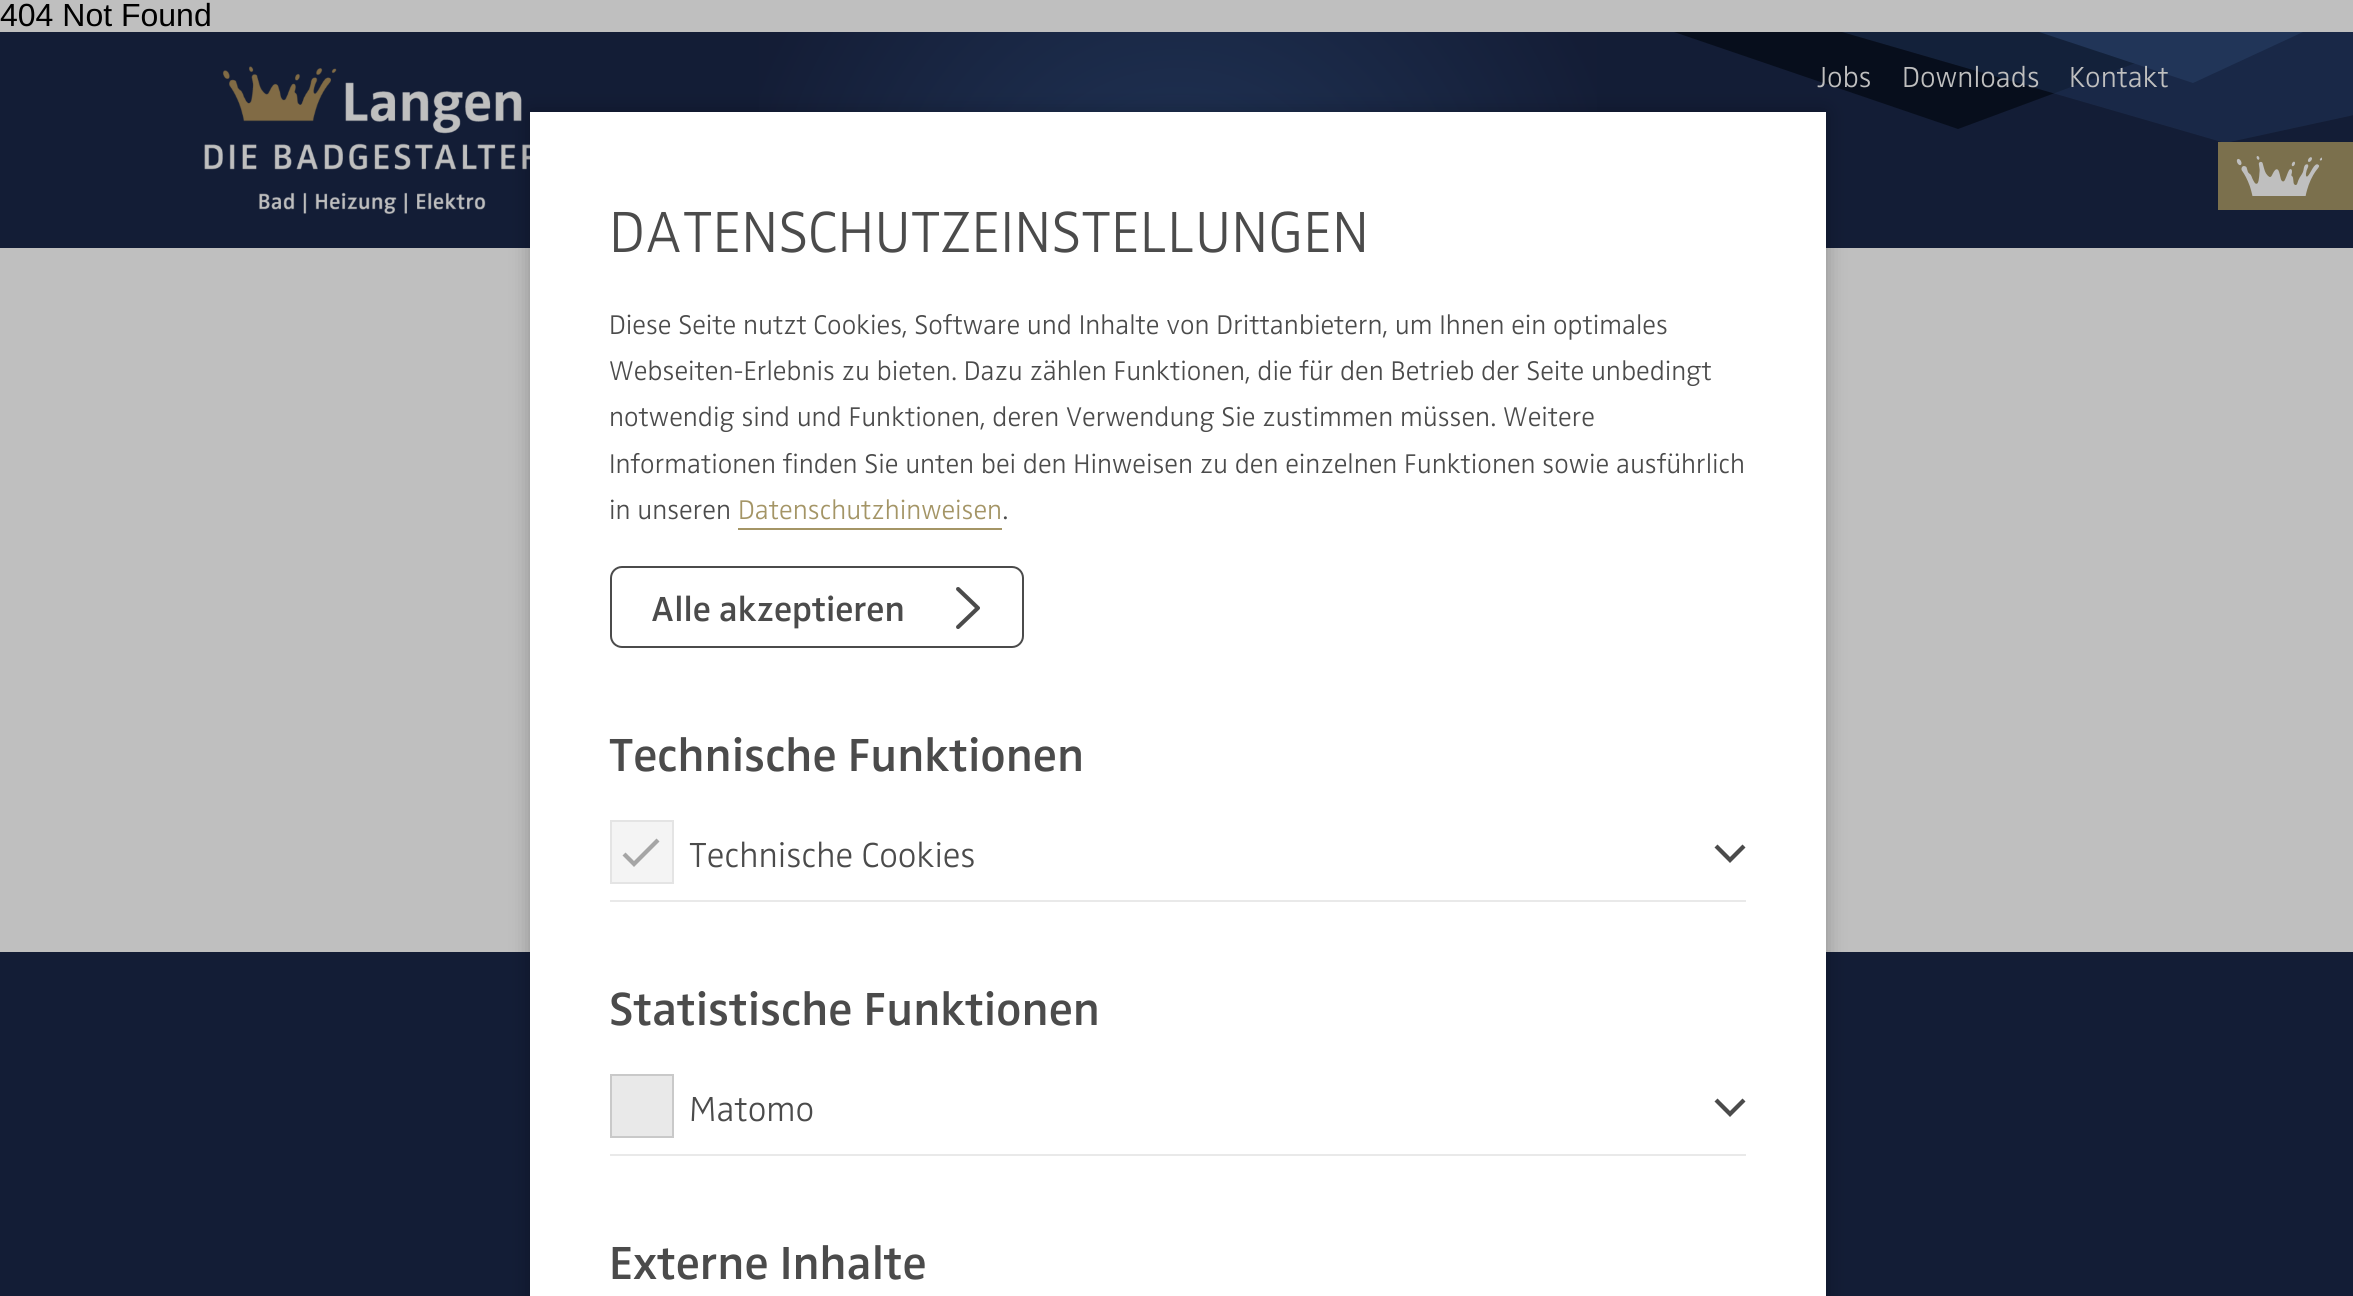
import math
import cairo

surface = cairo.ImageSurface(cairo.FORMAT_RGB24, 2353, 1296)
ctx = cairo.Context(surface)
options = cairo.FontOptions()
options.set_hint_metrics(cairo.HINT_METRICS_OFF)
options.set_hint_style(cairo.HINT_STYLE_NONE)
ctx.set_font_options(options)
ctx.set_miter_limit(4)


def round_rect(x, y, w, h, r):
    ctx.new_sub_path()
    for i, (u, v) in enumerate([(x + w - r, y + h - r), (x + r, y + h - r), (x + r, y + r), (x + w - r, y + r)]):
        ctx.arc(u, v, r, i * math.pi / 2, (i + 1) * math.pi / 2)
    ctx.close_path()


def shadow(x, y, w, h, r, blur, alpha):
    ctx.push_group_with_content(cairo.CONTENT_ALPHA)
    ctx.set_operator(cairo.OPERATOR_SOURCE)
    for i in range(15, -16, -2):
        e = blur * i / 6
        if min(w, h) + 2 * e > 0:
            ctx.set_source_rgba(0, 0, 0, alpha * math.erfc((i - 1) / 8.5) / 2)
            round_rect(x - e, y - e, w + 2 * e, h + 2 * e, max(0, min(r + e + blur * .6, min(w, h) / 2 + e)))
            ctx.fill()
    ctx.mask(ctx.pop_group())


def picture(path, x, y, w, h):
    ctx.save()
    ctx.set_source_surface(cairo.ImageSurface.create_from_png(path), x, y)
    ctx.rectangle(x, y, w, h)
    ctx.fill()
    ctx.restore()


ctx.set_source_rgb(0.749, 0.749, 0.749)
ctx.paint()
ctx.select_font_face("Liberation Sans")
ctx.set_font_size(32)
ctx.set_source_rgb(0, 0, 0)
ctx.move_to(0, 26)
ctx.show_text("404 Not Found")
ctx.set_source_rgb(0.078, 0.114, 0.212)
ctx.rectangle(0, 32, 2353, 216)
ctx.fill()
gradient = cairo.RadialGradient(1178, 248, 0, 1178, 248, 1131)
gradient.add_color_stop_rgba(0, 0.129, 0.208, 0.345, 1)
gradient.add_color_stop_rgba(0.4, 0.078, 0.114, 0.212, 1)
gradient.add_color_stop_rgba(1, 0.078, 0.114, 0.212, 1)
ctx.set_source(gradient)
ctx.rectangle(759, 32, 838, 216)
ctx.fill()
ctx.set_source_rgb(0.031, 0.055, 0.11)
ctx.new_path()
ctx.move_to(1674, 32)
ctx.line_to(2219, 32)
ctx.line_to(1958, 129)
ctx.close_path()
ctx.fill()
ctx.set_source_rgba(0.129, 0.208, 0.345, 0.5)
ctx.new_path()
ctx.move_to(1842, 32)
ctx.line_to(2225, 143)
ctx.line_to(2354, 115)
ctx.line_to(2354, 32)
ctx.close_path()
ctx.fill()
ctx.set_source_rgb(0.129, 0.208, 0.345)
ctx.new_path()
ctx.move_to(2039, 32)
ctx.line_to(2303, 32)
ctx.line_to(2193, 83)
ctx.close_path()
ctx.fill()
picture("img1.png", 204, 66, 326, 148)
ctx.select_font_face("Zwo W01 Light")
ctx.set_font_size(30)
ctx.set_source_rgb(0.749, 0.749, 0.749)
ctx.move_to(1817, 87)
ctx.show_text("Jobs")
ctx.move_to(1902, 87)
ctx.show_text("Downloads")
ctx.move_to(2069, 87)
ctx.show_text("Kontakt")
ctx.set_source_rgb(0.482, 0.439, 0.302)
ctx.rectangle(2218, 142, 135, 68)
ctx.fill()
picture("img2.png", 2236, 156, 86, 40)
ctx.set_source_rgb(0.078, 0.114, 0.212)
ctx.rectangle(0, 952, 2353, 344)
ctx.fill()
gradient = cairo.RadialGradient(1178, 1144, 0, 1178, 1144, 1358)
gradient.add_color_stop_rgba(0, 0.129, 0.208, 0.345, 1)
gradient.add_color_stop_rgba(0.4, 0.078, 0.114, 0.212, 1)
gradient.add_color_stop_rgba(1, 0.078, 0.114, 0.212, 1)
ctx.set_source(gradient)
ctx.rectangle(672, 952, 1012, 344)
ctx.fill()
ctx.set_source_rgb(0, 0, 0)
shadow(530, 112, 1296, 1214, 0, 10, 0.25)
ctx.set_source_rgb(1, 1, 1)
ctx.rectangle(530, 112, 1296, 1184)
ctx.fill()
ctx.set_font_size(60)
ctx.set_source_rgb(0.294, 0.294, 0.294)
ctx.move_to(609, 252)
ctx.show_text("DATENSCHUTZEINSTELLUNGEN")
ctx.set_font_size(28)
ctx.move_to(609, 334)
ctx.show_text("Diese Seite nutzt Cookies, Software und Inhalte von Drittanbietern, um Ihnen ein optimales")
ctx.move_to(609, 380)
ctx.show_text("Webseiten-Erlebnis zu bieten. Dazu zählen Funktionen, die für den Betrieb der Seite unbedingt")
ctx.move_to(609, 426)
ctx.show_text("notwendig sind und Funktionen, deren Verwendung Sie zustimmen müssen. Weitere")
ctx.move_to(609, 473)
ctx.show_text("Informationen finden Sie unten bei den Hinweisen zu den einzelnen Funktionen sowie ausführlich")
ctx.move_to(609, 519)
ctx.show_text("in unseren")
ctx.set_source_rgb(0.643, 0.584, 0.4)
ctx.move_to(738, 519)
ctx.show_text("Datenschutzhinweisen")
ctx.rectangle(738, 528, 264, 2)
ctx.fill()
ctx.set_source_rgb(0.294, 0.294, 0.294)
ctx.move_to(1002, 519)
ctx.show_text(".")
round_rect(611, 567, 412, 80, 11)
ctx.stroke()
ctx.select_font_face("Zwo W01 SemiBold")
ctx.set_font_size(36)
ctx.move_to(651, 621)
ctx.show_text("Alle akzeptieren")
picture("img3.png", 956, 587, 24, 42)
ctx.set_font_size(48)
ctx.move_to(609, 771)
ctx.show_text("Technische Funktionen")
ctx.set_source_rgb(0.914, 0.914, 0.914)
ctx.rectangle(610, 900, 1136, 2)
ctx.fill()
ctx.set_source_rgb(0.957, 0.957, 0.957)
ctx.rectangle(611, 821, 62, 62)
ctx.fill_preserve()
ctx.set_source_rgb(0.894, 0.894, 0.894)
ctx.stroke()
ctx.set_source_rgb(0.647, 0.647, 0.647)
ctx.new_path()
ctx.move_to(634, 867)
ctx.line_to(622.5, 855.5)
ctx.line_to(625.5, 852.5)
ctx.line_to(634, 861)
ctx.line_to(656.5, 838.5)
ctx.line_to(659.5, 841.5)
ctx.close_path()
ctx.fill()
ctx.select_font_face("Zwo W01 Light")
ctx.set_font_size(36)
ctx.set_source_rgb(0.294, 0.294, 0.294)
ctx.move_to(689, 867)
ctx.show_text("Technische Cookies")
ctx.new_path()
ctx.move_to(1730, 863)
ctx.line_to(1714.5, 847.5)
ctx.line_to(1717.5, 844.5)
ctx.line_to(1730, 857)
ctx.line_to(1742.5, 844.5)
ctx.line_to(1745.5, 847.5)
ctx.close_path()
ctx.fill()
ctx.select_font_face("Zwo W01 SemiBold")
ctx.set_font_size(48)
ctx.move_to(609, 1025)
ctx.show_text("Statistische Funktionen")
ctx.set_source_rgb(0.914, 0.914, 0.914)
ctx.rectangle(610, 1154, 1136, 2)
ctx.fill()
ctx.rectangle(611, 1075, 62, 62)
ctx.fill_preserve()
ctx.set_source_rgb(0.788, 0.788, 0.788)
ctx.stroke()
ctx.select_font_face("Zwo W01 Light")
ctx.set_font_size(36)
ctx.set_source_rgb(0.294, 0.294, 0.294)
ctx.move_to(689, 1121)
ctx.show_text("Matomo")
ctx.new_path()
ctx.move_to(1730, 1117)
ctx.line_to(1714.5, 1101.5)
ctx.line_to(1717.5, 1098.5)
ctx.line_to(1730, 1111)
ctx.line_to(1742.5, 1098.5)
ctx.line_to(1745.5, 1101.5)
ctx.close_path()
ctx.fill()
ctx.select_font_face("Zwo W01 SemiBold")
ctx.set_font_size(48)
ctx.move_to(609, 1279)
ctx.show_text("Externe Inhalte")
surface.write_to_png("page.png")
